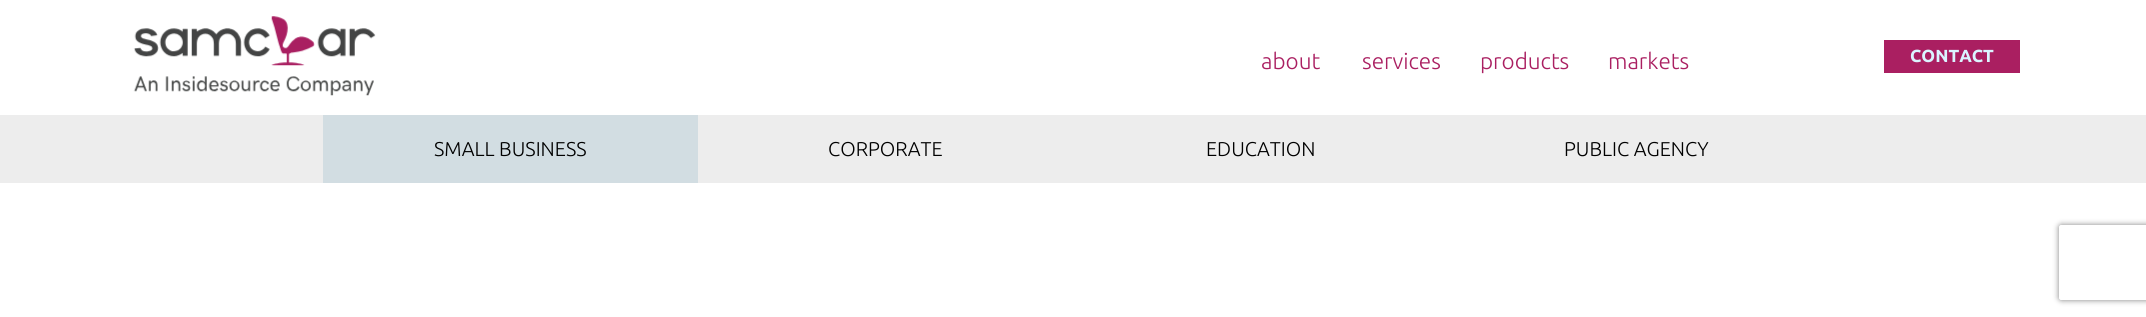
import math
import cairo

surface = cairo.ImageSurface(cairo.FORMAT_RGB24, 2146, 317)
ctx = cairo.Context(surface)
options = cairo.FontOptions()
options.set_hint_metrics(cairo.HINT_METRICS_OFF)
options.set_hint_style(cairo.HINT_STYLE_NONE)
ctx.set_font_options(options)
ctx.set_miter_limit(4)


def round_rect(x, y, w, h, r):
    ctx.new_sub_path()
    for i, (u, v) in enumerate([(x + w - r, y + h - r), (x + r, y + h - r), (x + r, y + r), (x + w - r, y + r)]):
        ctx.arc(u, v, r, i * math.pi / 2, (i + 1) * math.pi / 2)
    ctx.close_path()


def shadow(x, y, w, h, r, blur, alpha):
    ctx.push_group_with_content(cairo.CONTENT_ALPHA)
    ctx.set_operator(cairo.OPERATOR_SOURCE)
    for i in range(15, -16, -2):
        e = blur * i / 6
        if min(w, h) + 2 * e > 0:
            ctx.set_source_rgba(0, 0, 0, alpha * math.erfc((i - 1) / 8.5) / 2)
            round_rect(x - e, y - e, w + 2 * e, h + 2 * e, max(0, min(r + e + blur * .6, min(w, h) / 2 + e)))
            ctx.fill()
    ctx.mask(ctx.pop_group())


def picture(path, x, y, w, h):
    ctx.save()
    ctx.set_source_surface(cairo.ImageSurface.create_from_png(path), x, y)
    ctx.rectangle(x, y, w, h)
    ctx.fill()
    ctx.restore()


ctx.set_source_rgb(1, 1, 1)
ctx.paint()
picture("img1.png", 133, 16, 243, 80)
ctx.select_font_face("Ubuntu Light")
ctx.set_font_size(22.5)
ctx.set_source_rgb(0.667, 0.122, 0.38)
ctx.move_to(1261, 69)
ctx.show_text("about")
ctx.move_to(1362, 69)
ctx.show_text("services")
ctx.move_to(1480, 69)
ctx.show_text("products")
ctx.move_to(1608, 69)
ctx.show_text("markets")
ctx.rectangle(1884, 40, 136, 33)
ctx.fill()
ctx.select_font_face("Ubuntu", cairo.FONT_SLANT_NORMAL, cairo.FONT_WEIGHT_BOLD)
ctx.set_font_size(17.5)
ctx.set_source_rgb(0.855, 0.957, 1)
ctx.move_to(1910, 62)
ctx.show_text("CONTACT")
ctx.set_source_rgb(0.929, 0.929, 0.929)
ctx.rectangle(0, 115, 2146, 68)
ctx.fill()
ctx.set_source_rgb(0.824, 0.867, 0.886)
ctx.rectangle(323, 115, 375, 68)
ctx.fill()
ctx.select_font_face("Ubuntu Light")
ctx.set_font_size(20)
ctx.set_source_rgb(0, 0, 0)
ctx.move_to(434, 156)
ctx.show_text("SMALL BUSINESS")
ctx.move_to(828, 156)
ctx.show_text("CORPORATE")
ctx.move_to(1206, 156)
ctx.show_text("EDUCATION")
ctx.move_to(1564, 156)
ctx.show_text("PUBLIC AGENCY")
ctx.save()
ctx.set_fill_rule(cairo.FILL_RULE_EVEN_ODD)
ctx.new_path()
ctx.move_to(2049, 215)
ctx.line_to(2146, 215)
ctx.line_to(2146, 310)
ctx.line_to(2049, 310)
ctx.close_path()
ctx.move_to(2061.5, 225)
ctx.line_to(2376.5, 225)
ctx.curve_to(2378, 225, 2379, 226, 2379, 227.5)
ctx.line_to(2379, 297.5)
ctx.curve_to(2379, 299, 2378, 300, 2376.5, 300)
ctx.line_to(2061.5, 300)
ctx.curve_to(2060, 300, 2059, 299, 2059, 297.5)
ctx.line_to(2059, 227.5)
ctx.curve_to(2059, 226, 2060, 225, 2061.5, 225)
ctx.close_path()
ctx.clip()
ctx.set_source_rgb(0.502, 0.502, 0.502)
shadow(2059, 225, 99, 75, 2.5, 3, 1)
ctx.restore()
surface.write_to_png("page.png")
